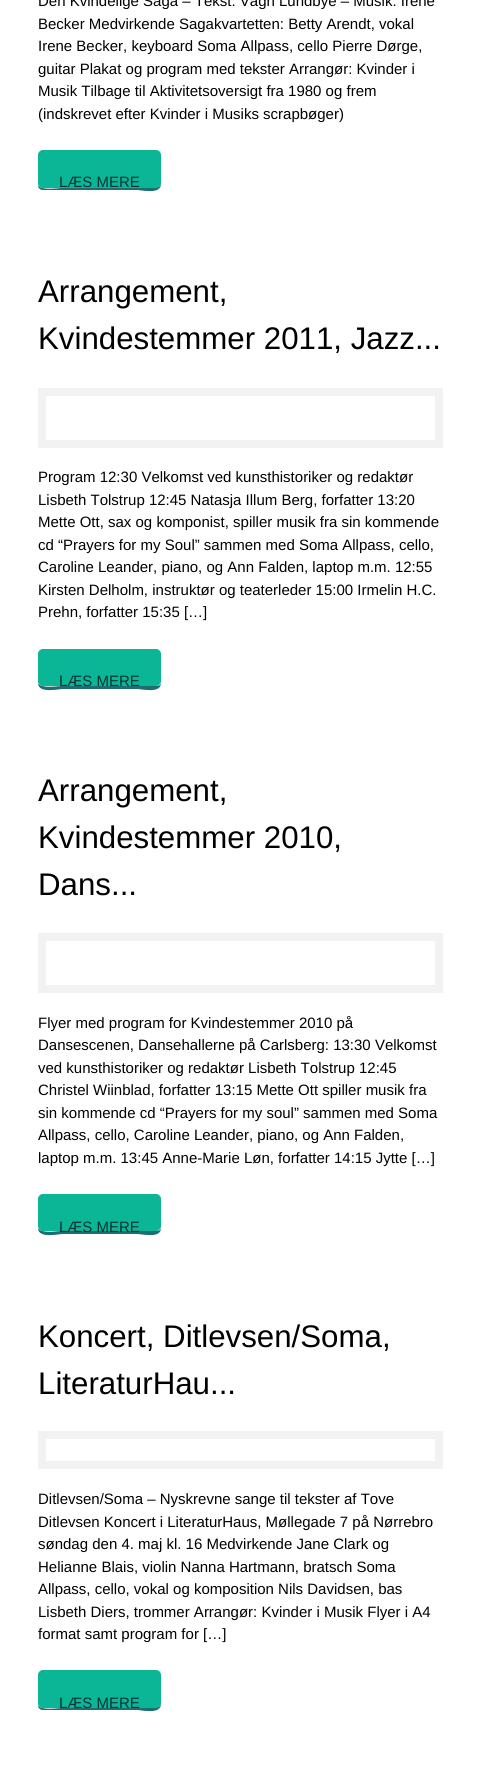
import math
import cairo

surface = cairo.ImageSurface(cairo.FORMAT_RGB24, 479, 1783)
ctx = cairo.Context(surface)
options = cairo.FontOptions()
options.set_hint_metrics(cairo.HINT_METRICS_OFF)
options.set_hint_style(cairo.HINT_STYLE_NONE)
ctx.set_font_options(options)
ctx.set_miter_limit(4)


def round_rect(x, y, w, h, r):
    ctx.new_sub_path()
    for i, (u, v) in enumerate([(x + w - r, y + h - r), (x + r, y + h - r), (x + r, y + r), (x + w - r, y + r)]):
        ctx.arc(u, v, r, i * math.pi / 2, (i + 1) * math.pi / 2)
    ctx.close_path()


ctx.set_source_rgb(1, 1, 1)
ctx.paint()
ctx.select_font_face("Liberation Sans")
ctx.set_font_size(15)
ctx.set_source_rgb(0, 0, 0)
ctx.move_to(38, 6)
ctx.show_text("Den Kvindelige Saga – Tekst: Vagn Lundbye – Musik: Irene")
ctx.move_to(38, 29)
ctx.show_text("Becker Medvirkende Sagakvartetten: Betty Arendt, vokal")
ctx.move_to(38, 51)
ctx.show_text("Irene Becker, keyboard Soma Allpass, cello Pierre Dørge,")
ctx.move_to(38, 74)
ctx.show_text("guitar Plakat og program med tekster Arrangør: Kvinder i")
ctx.move_to(38, 96)
ctx.show_text("Musik Tilbage til Aktivitetsoversigt fra 1980 og frem")
ctx.move_to(38, 119)
ctx.show_text("(indskrevet efter Kvinder i Musiks scrapbøger)")
ctx.set_source_rgb(0.114, 0.431, 0.447)
ctx.new_path()
ctx.move_to(38, 185)
ctx.curve_to(38, 188, 40, 190, 43, 190)
ctx.line_to(137, 190)
ctx.curve_to(141, 190, 161, 195, 161, 184)
ctx.line_to(160, 186)
ctx.line_to(157, 187)
ctx.line_to(61, 188)
ctx.curve_to(58, 188, 41, 191, 38, 185)
ctx.close_path()
ctx.fill()
ctx.set_source_rgb(0.043, 0.714, 0.592)
round_rect(38.5, 150.5, 122, 37, 4.5)
ctx.fill_preserve()
ctx.set_line_width(1)
ctx.stroke()
ctx.set_source_rgb(0, 0.2, 0.2)
ctx.move_to(59, 187)
ctx.show_text("LÆS MERE")
ctx.set_font_size(31.25)
ctx.set_source_rgb(0, 0, 0)
ctx.move_to(38, 302)
ctx.show_text("Arrangement,")
ctx.move_to(38, 349)
ctx.show_text("Kvindestemmer 2011, Jazz...")
ctx.rectangle(42, 392, 397, 52)
ctx.set_source_rgb(0.949, 0.949, 0.949)
ctx.set_line_width(8)
ctx.stroke()
ctx.set_font_size(15)
ctx.set_source_rgb(0, 0, 0)
ctx.move_to(38, 482)
ctx.show_text("Program 12:30 Velkomst ved kunsthistoriker og redaktør")
ctx.move_to(38, 505)
ctx.show_text("Lisbeth Tolstrup 12:45 Natasja Illum Berg, forfatter 13:20")
ctx.move_to(38, 527)
ctx.show_text("Mette Ott, sax og komponist, spiller musik fra sin kommende")
ctx.move_to(38, 550)
ctx.show_text("cd “Prayers for my Soul” sammen med Soma Allpass, cello,")
ctx.move_to(38, 572)
ctx.show_text("Caroline Leander, piano, og Ann Falden, laptop m.m. 12:55")
ctx.move_to(38, 595)
ctx.show_text("Kirsten Delholm, instruktør og teaterleder 15:00 Irmelin H.C.")
ctx.move_to(38, 617)
ctx.show_text("Prehn, forfatter 15:35 […]")
ctx.set_source_rgb(0.114, 0.431, 0.447)
ctx.new_path()
ctx.move_to(38, 683)
ctx.curve_to(38, 694, 59, 689, 62, 689)
ctx.line_to(137, 689)
ctx.curve_to(142, 689, 161, 694, 161, 683)
ctx.line_to(160, 685)
ctx.line_to(157, 686)
ctx.line_to(61, 686)
ctx.curve_to(58, 686, 41, 689, 38, 683)
ctx.close_path()
ctx.fill()
ctx.set_source_rgb(0.043, 0.714, 0.592)
round_rect(38.5, 649.5, 122, 36, 4.5)
ctx.fill_preserve()
ctx.set_line_width(1)
ctx.stroke()
ctx.set_source_rgb(0, 0.2, 0.2)
ctx.move_to(59, 686)
ctx.show_text("LÆS MERE")
ctx.set_font_size(31.25)
ctx.set_source_rgb(0, 0, 0)
ctx.move_to(38, 801)
ctx.show_text("Arrangement,")
ctx.move_to(38, 848)
ctx.show_text("Kvindestemmer 2010,")
ctx.move_to(38, 895)
ctx.show_text("Dans...")
ctx.rectangle(42, 937, 397, 52)
ctx.set_source_rgb(0.949, 0.949, 0.949)
ctx.set_line_width(8)
ctx.stroke()
ctx.set_font_size(15)
ctx.set_source_rgb(0, 0, 0)
ctx.move_to(38, 1028)
ctx.show_text("Flyer med program for Kvindestemmer 2010 på")
ctx.move_to(38, 1050)
ctx.show_text("Dansescenen, Dansehallerne på Carlsberg: 13:30 Velkomst")
ctx.move_to(38, 1073)
ctx.show_text("ved kunsthistoriker og redaktør Lisbeth Tolstrup 12:45")
ctx.move_to(38, 1095)
ctx.show_text("Christel Wiinblad, forfatter 13:15 Mette Ott spiller musik fra")
ctx.move_to(38, 1118)
ctx.show_text("sin kommende cd “Prayers for my soul” sammen med Soma")
ctx.move_to(38, 1140)
ctx.show_text("Allpass, cello, Caroline Leander, piano, og Ann Falden,")
ctx.move_to(38, 1163)
ctx.show_text("laptop m.m. 13:45 Anne-Marie Løn, forfatter 14:15 Jytte […]")
ctx.set_source_rgb(0.114, 0.431, 0.447)
ctx.new_path()
ctx.move_to(38, 1228)
ctx.curve_to(38, 1239, 59, 1234, 62, 1234)
ctx.line_to(137, 1234)
ctx.curve_to(142, 1234, 161, 1239, 161, 1228)
ctx.line_to(160, 1230)
ctx.line_to(157, 1231)
ctx.line_to(61, 1231)
ctx.curve_to(58, 1231, 41, 1234, 38, 1228)
ctx.close_path()
ctx.fill()
ctx.set_source_rgb(0.043, 0.714, 0.592)
round_rect(38.5, 1194.5, 122, 36, 4.5)
ctx.fill_preserve()
ctx.set_line_width(1)
ctx.stroke()
ctx.set_source_rgb(0, 0.2, 0.2)
ctx.move_to(59, 1232)
ctx.show_text("LÆS MERE")
ctx.set_font_size(31.25)
ctx.set_source_rgb(0, 0, 0)
ctx.move_to(38, 1347)
ctx.show_text("Koncert, Ditlevsen/Soma,")
ctx.move_to(38, 1394)
ctx.show_text("LiteraturHau...")
ctx.rectangle(42, 1435, 397, 30)
ctx.set_source_rgb(0.949, 0.949, 0.949)
ctx.set_line_width(8)
ctx.stroke()
ctx.set_font_size(15)
ctx.set_source_rgb(0, 0, 0)
ctx.move_to(38, 1504)
ctx.show_text("Ditlevsen/Soma – Nyskrevne sange til tekster af Tove")
ctx.move_to(38, 1527)
ctx.show_text("Ditlevsen Koncert i LiteraturHaus, Møllegade 7 på Nørrebro")
ctx.move_to(38, 1549)
ctx.show_text("søndag den 4. maj kl. 16 Medvirkende Jane Clark og")
ctx.move_to(38, 1572)
ctx.show_text("Helianne Blais, violin Nanna Hartmann, bratsch Soma")
ctx.move_to(38, 1594)
ctx.show_text("Allpass, cello, vokal og komposition Nils Davidsen, bas")
ctx.move_to(38, 1617)
ctx.show_text("Lisbeth Diers, trommer Arrangør: Kvinder i Musik Flyer i A4")
ctx.move_to(38, 1639)
ctx.show_text("format samt program for […]")
ctx.set_source_rgb(0.114, 0.431, 0.447)
ctx.new_path()
ctx.move_to(38, 1705)
ctx.curve_to(38, 1708, 40, 1710, 43, 1710)
ctx.line_to(137, 1710)
ctx.curve_to(141, 1710, 161, 1715, 161, 1704)
ctx.line_to(160, 1706)
ctx.line_to(157, 1707)
ctx.line_to(61, 1708)
ctx.curve_to(58, 1708, 41, 1711, 38, 1705)
ctx.close_path()
ctx.fill()
ctx.set_source_rgb(0.043, 0.714, 0.592)
round_rect(38.5, 1670.5, 122, 37, 4.5)
ctx.fill_preserve()
ctx.set_line_width(1)
ctx.stroke()
ctx.set_source_rgb(0, 0.2, 0.2)
ctx.move_to(59, 1708)
ctx.show_text("LÆS MERE")
surface.write_to_png("page.png")
